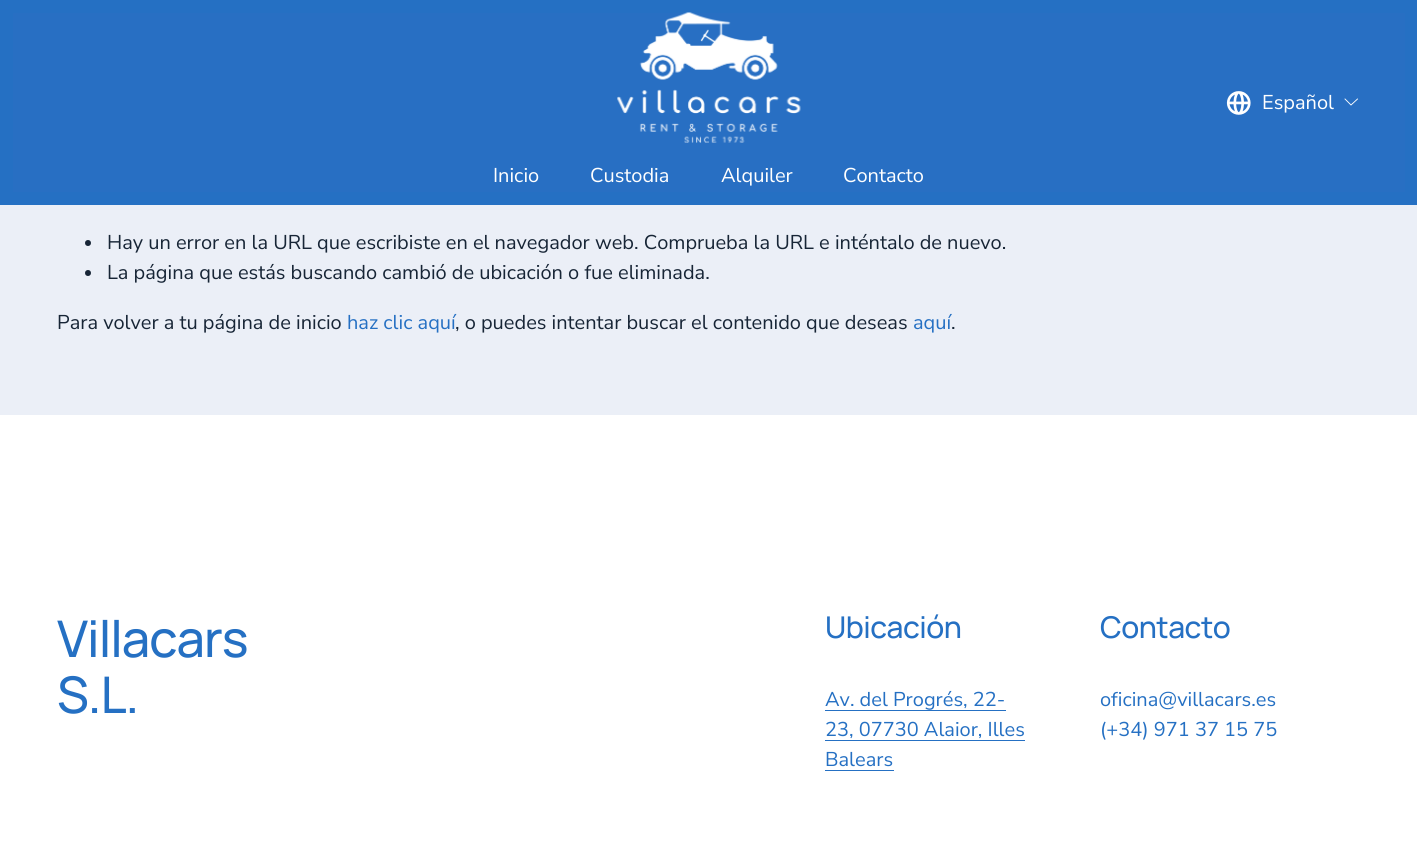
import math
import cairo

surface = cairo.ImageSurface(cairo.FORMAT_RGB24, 1417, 857)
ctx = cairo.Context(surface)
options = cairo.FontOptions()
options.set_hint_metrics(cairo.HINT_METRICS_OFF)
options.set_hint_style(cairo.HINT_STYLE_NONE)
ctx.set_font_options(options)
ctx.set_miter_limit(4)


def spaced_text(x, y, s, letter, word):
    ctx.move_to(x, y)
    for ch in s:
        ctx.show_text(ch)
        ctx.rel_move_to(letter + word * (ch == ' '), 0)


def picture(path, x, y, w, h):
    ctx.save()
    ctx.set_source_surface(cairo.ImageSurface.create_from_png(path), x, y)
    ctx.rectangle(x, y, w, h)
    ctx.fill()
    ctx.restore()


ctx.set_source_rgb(0.918, 0.937, 0.965)
ctx.paint()
ctx.set_source_rgb(0.157, 0.435, 0.765)
ctx.rectangle(6.5, 6.5, 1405, 192)
ctx.fill_preserve()
ctx.set_source_rgb(0.145, 0.439, 0.765)
ctx.set_line_width(13)
ctx.stroke()
picture("img1.png", 1226, 91, 25, 24)
ctx.select_font_face("Nunito Sans")
ctx.set_font_size(20)
ctx.set_source_rgb(1, 1, 1)
ctx.move_to(1262, 109)
ctx.show_text("Español")
ctx.new_path()
ctx.move_to(1357.5, 99)
ctx.line_to(1351, 105)
ctx.line_to(1345, 99)
ctx.set_line_width(0.9)
ctx.set_line_cap(cairo.LINE_CAP_SQUARE)
ctx.stroke()
picture("img2.png", 617, 12, 184, 131)
ctx.move_to(493, 182)
ctx.show_text("Inicio")
ctx.move_to(590, 182)
ctx.show_text("Custodia")
ctx.move_to(721, 182)
ctx.show_text("Alquiler")
ctx.move_to(843, 182)
ctx.show_text("Contacto")
ctx.set_source_rgb(0.09, 0.145, 0.212)
ctx.new_path()
ctx.arc(88, 243, 3, 0, 2 * math.pi)
ctx.fill()
ctx.move_to(107, 249)
ctx.show_text("Hay un error en la URL que escribiste en el navegador web. Comprueba la URL e inténtalo de nuevo.")
ctx.new_path()
ctx.arc(88, 273, 3, 0, 2 * math.pi)
ctx.fill()
ctx.move_to(107, 279)
ctx.show_text("La página que estás buscando cambió de ubicación o fue eliminada.")
ctx.move_to(57, 329)
ctx.show_text("Para volver a tu página de inicio")
ctx.set_source_rgb(0.145, 0.439, 0.765)
ctx.move_to(347, 329)
ctx.show_text("haz clic aquí")
ctx.set_source_rgb(0.09, 0.145, 0.212)
ctx.move_to(455, 329)
ctx.show_text(", o puedes intentar buscar el contenido que deseas")
ctx.set_source_rgb(0.145, 0.439, 0.765)
ctx.move_to(913, 329)
ctx.show_text("aquí")
ctx.set_source_rgb(0.09, 0.145, 0.212)
ctx.move_to(951, 329)
ctx.show_text(".")
ctx.set_source_rgb(1, 1, 1)
ctx.rectangle(0, 415, 1417, 442)
ctx.fill()
ctx.select_font_face("Manrope Medium")
ctx.set_font_size(50.5)
ctx.set_source_rgb(0.145, 0.439, 0.765)
spaced_text(57, 657, "Villacars", -1, 0)
spaced_text(57, 713, "S.L.", -1, 0)
ctx.set_font_size(30)
spaced_text(825, 638, "Ubicación", -0.5, 0)
ctx.select_font_face("Nunito Sans")
ctx.set_font_size(20)
ctx.move_to(825, 706)
ctx.show_text("Av. del Progrés, 22-")
ctx.rectangle(825, 710, 181, 1)
ctx.fill()
ctx.move_to(825, 736)
ctx.show_text("23, 07730 Alaior, Illes")
ctx.rectangle(825, 740, 200, 1)
ctx.fill()
ctx.move_to(825, 766)
ctx.show_text("Balears")
ctx.rectangle(825, 770, 69, 1)
ctx.fill()
ctx.select_font_face("Manrope Medium")
ctx.set_font_size(30)
spaced_text(1100, 638, "Contacto", -0.5, 0)
ctx.select_font_face("Nunito Sans")
ctx.set_font_size(20)
ctx.move_to(1100, 706)
ctx.show_text("oficina@villacars.es")
ctx.move_to(1100, 736)
ctx.show_text("(+34) 971 37 15 75")
surface.write_to_png("page.png")
